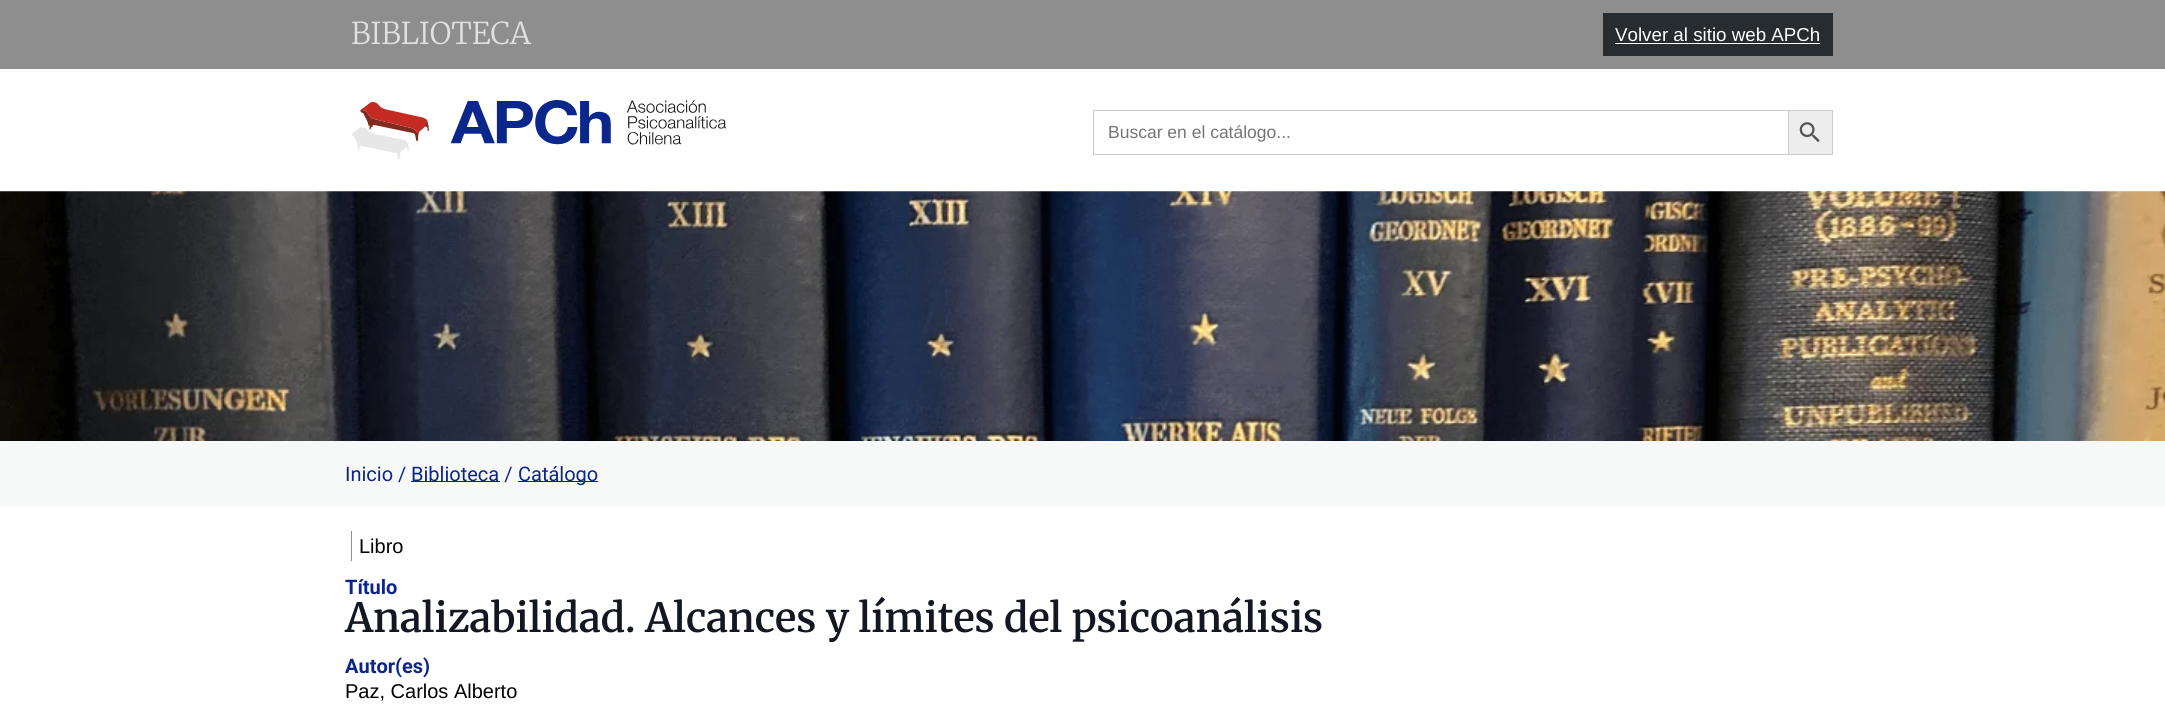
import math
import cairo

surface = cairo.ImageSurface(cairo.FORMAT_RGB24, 2165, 705)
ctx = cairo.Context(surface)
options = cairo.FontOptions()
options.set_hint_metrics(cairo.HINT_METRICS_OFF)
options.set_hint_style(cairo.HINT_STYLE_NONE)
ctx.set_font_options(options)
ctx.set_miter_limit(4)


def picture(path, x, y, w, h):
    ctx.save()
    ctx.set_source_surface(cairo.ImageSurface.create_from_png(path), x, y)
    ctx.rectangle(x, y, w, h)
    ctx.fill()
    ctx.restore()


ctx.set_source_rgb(1, 1, 1)
ctx.paint()
ctx.set_source_rgb(0.561, 0.557, 0.557)
ctx.rectangle(0, 0, 2165, 69)
ctx.fill()
ctx.select_font_face("Merriweather Light")
ctx.set_font_size(30)
ctx.set_source_rgb(0.882, 0.882, 0.882)
ctx.move_to(351, 44)
ctx.show_text("BIBLIOTECA")
ctx.set_source_rgb(0.149, 0.173, 0.188)
ctx.rectangle(1603, 13, 230, 43)
ctx.fill()
ctx.select_font_face("Liberation Sans")
ctx.set_font_size(18.75)
ctx.set_source_rgb(1, 1, 1)
ctx.move_to(1615, 41)
ctx.show_text("Volver al sitio web APCh")
ctx.rectangle(1615, 43, 205, 1)
ctx.fill()
picture("img1.png", 351, 100, 375, 60)
ctx.set_source_rgb(0.8, 0.8, 0.8)
ctx.rectangle(1093, 110, 695, 1)
ctx.fill()
ctx.rectangle(1093, 154, 695, 1)
ctx.fill()
ctx.rectangle(1093, 110, 1, 45)
ctx.fill()
ctx.set_font_size(17.5)
ctx.set_source_rgb(0.459, 0.459, 0.459)
ctx.move_to(1108, 138)
ctx.show_text("Buscar en el catálogo...")
ctx.set_source_rgb(0.929, 0.929, 0.929)
ctx.rectangle(1788.5, 110.5, 44, 44)
ctx.fill_preserve()
ctx.set_source_rgb(0.8, 0.8, 0.8)
ctx.set_line_width(1)
ctx.stroke()
picture("img2.png", 1799, 122, 21, 21)
picture("img3.png", 0, 191, 2165, 250)
ctx.set_source_rgb(0.965, 0.973, 0.976)
ctx.rectangle(0, 441, 2165, 65)
ctx.fill()
ctx.select_font_face("Roboto")
ctx.set_font_size(20)
ctx.set_source_rgb(0.047, 0.141, 0.549)
ctx.move_to(345, 481)
ctx.show_text("Inicio /")
ctx.rectangle(411, 481, 89, 1)
ctx.fill()
ctx.move_to(411, 481)
ctx.show_text("Biblioteca /")
ctx.rectangle(518, 481, 80, 1)
ctx.fill()
ctx.move_to(518, 481)
ctx.show_text("Catálogo")
ctx.set_source_rgb(0.561, 0.557, 0.557)
ctx.rectangle(351, 531, 1, 30)
ctx.fill()
ctx.select_font_face("Liberation Sans")
ctx.set_source_rgb(0, 0, 0)
ctx.move_to(359, 553)
ctx.show_text("Libro")
ctx.select_font_face("Roboto", cairo.FONT_SLANT_NORMAL, cairo.FONT_WEIGHT_BOLD)
ctx.set_source_rgb(0.047, 0.141, 0.549)
ctx.move_to(345, 594)
ctx.show_text("Título")
ctx.select_font_face("Merriweather SemiBold")
ctx.set_font_size(40)
ctx.set_source_rgb(0.075, 0.09, 0.129)
ctx.move_to(345, 632)
ctx.show_text("Analizabilidad. Alcances y límites del psicoanálisis")
ctx.select_font_face("Roboto", cairo.FONT_SLANT_NORMAL, cairo.FONT_WEIGHT_BOLD)
ctx.set_font_size(20)
ctx.set_source_rgb(0.047, 0.141, 0.549)
ctx.move_to(345, 673)
ctx.show_text("Autor(es)")
ctx.select_font_face("Liberation Sans")
ctx.set_source_rgb(0, 0, 0)
ctx.move_to(345, 698)
ctx.show_text("Paz, Carlos Alberto")
surface.write_to_png("page.png")
